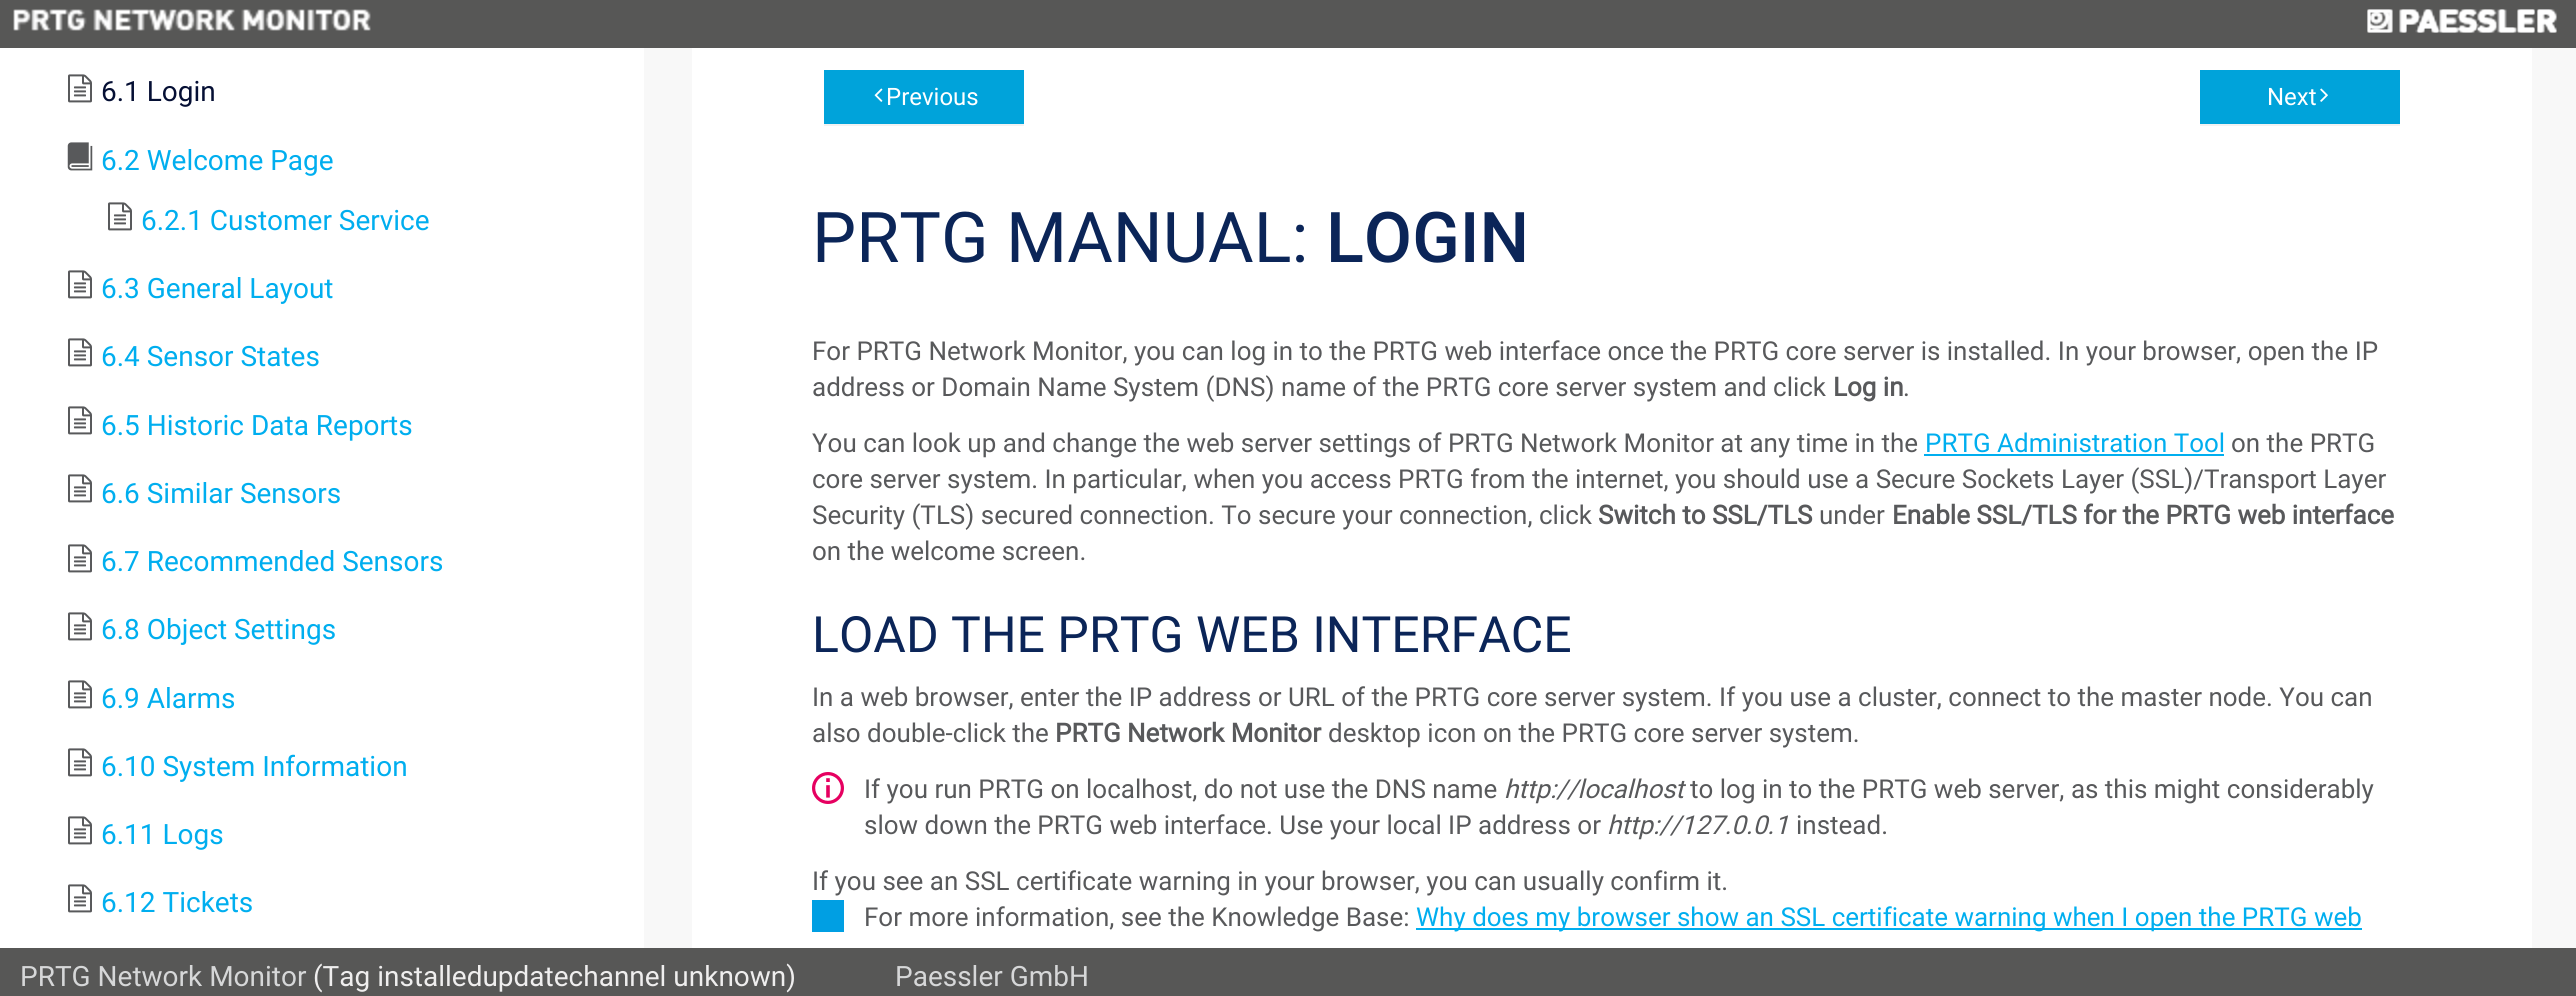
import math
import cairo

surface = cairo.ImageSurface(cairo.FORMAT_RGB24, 2576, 996)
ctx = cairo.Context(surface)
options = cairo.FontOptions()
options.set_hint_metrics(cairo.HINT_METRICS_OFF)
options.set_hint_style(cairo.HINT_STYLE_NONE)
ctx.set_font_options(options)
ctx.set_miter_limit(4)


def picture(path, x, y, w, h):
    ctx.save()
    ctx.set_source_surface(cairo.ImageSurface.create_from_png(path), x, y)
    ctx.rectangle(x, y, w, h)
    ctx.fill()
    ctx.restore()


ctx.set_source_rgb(0.969, 0.969, 0.969)
ctx.paint()
ctx.set_source_rgb(0.341, 0.341, 0.337)
ctx.rectangle(0, 0, 2576, 48)
ctx.fill()
picture("img1.png", 13, 9, 358, 22)
picture("img2.png", 2367, 9, 190, 24)
picture("img3.png", 2367, 9, 190, 24)
ctx.set_source_rgb(1, 1, 1)
ctx.rectangle(0, 48, 644, 900)
ctx.fill()
picture("img4.png", 68, 74, 24, 29)
ctx.select_font_face("Roboto")
ctx.set_font_size(28)
ctx.set_source_rgb(0.02, 0.059, 0.204)
ctx.move_to(101, 101)
ctx.show_text("6.1 Login")
picture("img5.png", 67, 142, 26, 29)
ctx.set_source_rgb(0, 0.682, 0.937)
ctx.move_to(101, 170)
ctx.show_text("6.2 Welcome Page")
picture("img4.png", 108, 202, 24, 29)
ctx.move_to(141, 230)
ctx.show_text("6.2.1 Customer Service")
picture("img4.png", 68, 270, 24, 29)
ctx.move_to(101, 298)
ctx.show_text("6.3 General Layout")
picture("img4.png", 68, 338, 24, 29)
ctx.move_to(101, 366)
ctx.show_text("6.4 Sensor States")
picture("img4.png", 68, 406, 24, 29)
ctx.move_to(101, 435)
ctx.show_text("6.5 Historic Data Reports")
picture("img4.png", 68, 474, 24, 29)
ctx.move_to(101, 503)
ctx.show_text("6.6 Similar Sensors")
picture("img4.png", 68, 544, 24, 29)
ctx.move_to(101, 571)
ctx.show_text("6.7 Recommended Sensors")
picture("img4.png", 68, 612, 24, 29)
ctx.move_to(101, 639)
ctx.show_text("6.8 Object Settings")
picture("img4.png", 68, 680, 24, 29)
ctx.move_to(101, 708)
ctx.show_text("6.9 Alarms")
picture("img4.png", 68, 748, 24, 29)
ctx.move_to(101, 776)
ctx.show_text("6.10 System Information")
picture("img4.png", 68, 816, 24, 29)
ctx.move_to(101, 844)
ctx.show_text("6.11 Logs")
picture("img4.png", 68, 884, 24, 29)
ctx.move_to(101, 912)
ctx.show_text("6.12 Tickets")
ctx.set_source_rgb(1, 1, 1)
ctx.rectangle(692, 48, 1840, 900)
ctx.fill()
ctx.set_source_rgb(0.949, 0.949, 0.949)
ctx.rectangle(824, 124, 200, 2)
ctx.fill()
ctx.set_source_rgb(0, 0.639, 0.855)
ctx.rectangle(824, 70, 200, 54)
ctx.fill()
picture("img6.png", 874, 88, 9, 14)
ctx.set_font_size(24)
ctx.set_source_rgb(1, 1, 1)
ctx.move_to(886, 105)
ctx.show_text("Previous")
ctx.set_source_rgb(0.949, 0.949, 0.949)
ctx.rectangle(2200, 124, 200, 2)
ctx.fill()
ctx.set_source_rgb(0, 0.639, 0.855)
ctx.rectangle(2200, 70, 200, 54)
ctx.fill()
ctx.set_source_rgb(1, 1, 1)
ctx.move_to(2267, 105)
ctx.show_text("Next")
picture("img7.png", 2320, 88, 8, 14)
ctx.set_font_size(70)
ctx.set_source_rgb(0.043, 0.145, 0.345)
ctx.move_to(812, 262)
ctx.show_text("PRTG MANUAL:")
ctx.select_font_face("Roboto Medium")
ctx.move_to(1326, 262)
ctx.show_text("LOGIN")
ctx.select_font_face("Roboto")
ctx.set_font_size(26)
ctx.set_source_rgb(0.345, 0.349, 0.357)
ctx.move_to(812, 360)
ctx.show_text("For PRTG Network Monitor, you can log in to the PRTG web interface once the PRTG core server is installed. In your browser, open the IP")
ctx.move_to(812, 396)
ctx.show_text("address or Domain Name System (DNS) name of the PRTG core server system and click")
ctx.select_font_face("Roboto", cairo.FONT_SLANT_NORMAL, cairo.FONT_WEIGHT_BOLD)
ctx.move_to(1833, 396)
ctx.show_text("Log in")
ctx.select_font_face("Roboto")
ctx.move_to(1903, 396)
ctx.show_text(".")
ctx.move_to(812, 452)
ctx.show_text("You can look up and change the web server settings of PRTG Network Monitor at any time in the")
ctx.set_source_rgb(0, 0.682, 0.937)
ctx.move_to(1925, 452)
ctx.show_text("PRTG Administration Tool")
ctx.rectangle(1924, 454, 300, 2)
ctx.fill()
ctx.set_source_rgb(0.345, 0.349, 0.357)
ctx.move_to(2231, 452)
ctx.show_text("on the PRTG")
ctx.move_to(812, 488)
ctx.show_text("core server system. In particular, when you access PRTG from the internet, you should use a Secure Sockets Layer (SSL)/Transport Layer")
ctx.move_to(812, 524)
ctx.show_text("Security (TLS) secured connection. To secure your connection, click")
ctx.select_font_face("Roboto", cairo.FONT_SLANT_NORMAL, cairo.FONT_WEIGHT_BOLD)
ctx.move_to(1598, 524)
ctx.show_text("Switch to SSL/TLS")
ctx.select_font_face("Roboto")
ctx.move_to(1819, 524)
ctx.show_text("under")
ctx.select_font_face("Roboto", cairo.FONT_SLANT_NORMAL, cairo.FONT_WEIGHT_BOLD)
ctx.move_to(1892, 524)
ctx.show_text("Enable SSL/TLS for the PRTG web interface")
ctx.select_font_face("Roboto")
ctx.move_to(812, 560)
ctx.show_text("on the welcome screen.")
ctx.set_font_size(50)
ctx.set_source_rgb(0.043, 0.145, 0.345)
ctx.move_to(812, 652)
ctx.show_text("LOAD THE PRTG WEB INTERFACE")
ctx.set_font_size(26)
ctx.set_source_rgb(0.345, 0.349, 0.357)
ctx.move_to(812, 706)
ctx.show_text("In a web browser, enter the IP address or URL of the PRTG core server system. If you use a cluster, connect to the master node. You can")
ctx.move_to(812, 742)
ctx.show_text("also double-click the")
ctx.select_font_face("Roboto", cairo.FONT_SLANT_NORMAL, cairo.FONT_WEIGHT_BOLD)
ctx.move_to(1055, 742)
ctx.show_text("PRTG Network Monitor")
ctx.select_font_face("Roboto")
ctx.move_to(1328, 742)
ctx.show_text("desktop icon on the PRTG core server system.")
picture("img8.png", 812, 772, 32, 32)
ctx.move_to(864, 798)
ctx.show_text("If you run PRTG on localhost, do not use the DNS name")
ctx.select_font_face("Roboto", cairo.FONT_SLANT_ITALIC)
ctx.move_to(1504, 798)
ctx.show_text("http://localhost")
ctx.select_font_face("Roboto")
ctx.move_to(1690, 798)
ctx.show_text("to log in to the PRTG web server, as this might considerably")
ctx.move_to(864, 834)
ctx.show_text("slow down the PRTG web interface. Use your local IP address or")
ctx.select_font_face("Roboto", cairo.FONT_SLANT_ITALIC)
ctx.move_to(1607, 834)
ctx.show_text("http://127.0.0.1")
ctx.select_font_face("Roboto")
ctx.move_to(1796, 834)
ctx.show_text("instead.")
ctx.move_to(812, 890)
ctx.show_text("If you see an SSL certificate warning in your browser, you can usually confirm it.")
ctx.set_source_rgb(0, 0.624, 0.89)
ctx.rectangle(812, 900, 32, 32)
ctx.fill()
ctx.set_source_rgb(0.345, 0.349, 0.357)
ctx.move_to(864, 926)
ctx.show_text("For more information, see the Knowledge Base:")
ctx.set_source_rgb(0, 0.682, 0.937)
ctx.rectangle(1416, 928, 946, 2)
ctx.fill()
ctx.move_to(1416, 926)
ctx.show_text("Why does my browser show an SSL certificate warning when I open the PRTG web")
ctx.set_source_rgb(0.341, 0.341, 0.337)
ctx.rectangle(0, 948, 2576, 48)
ctx.fill()
ctx.set_font_size(28)
ctx.set_source_rgb(0.839, 0.843, 0.847)
ctx.move_to(20, 986)
ctx.show_text("PRTG Network Monitor")
ctx.set_source_rgb(0.937, 0.933, 0.933)
ctx.move_to(313, 986)
ctx.show_text("(Tag installedupdatechannel unknown)")
ctx.set_source_rgb(0.839, 0.843, 0.847)
ctx.move_to(895, 986)
ctx.show_text("Paessler GmbH")
surface.write_to_png("page.png")
